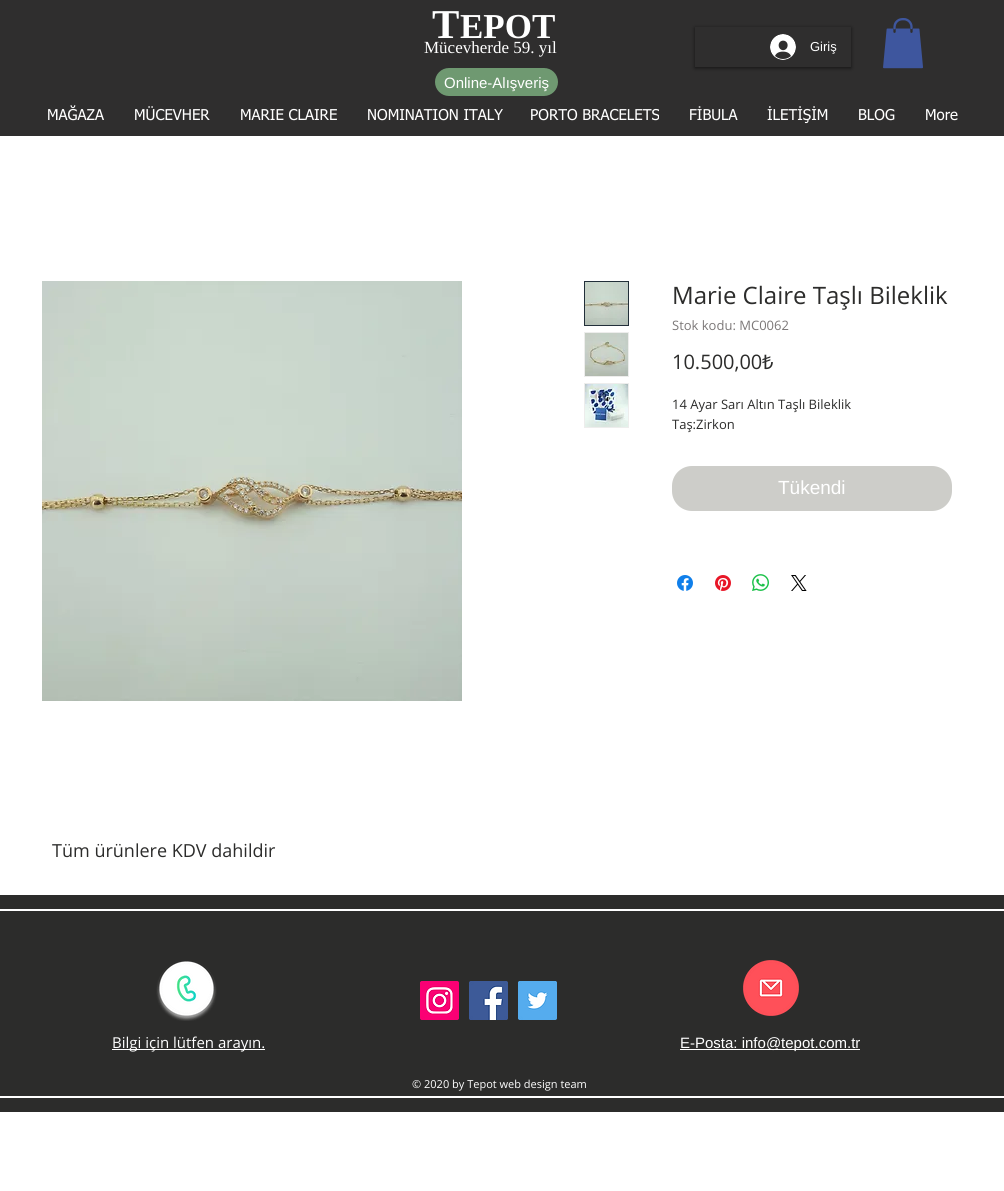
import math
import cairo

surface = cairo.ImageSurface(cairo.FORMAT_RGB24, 1004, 1191)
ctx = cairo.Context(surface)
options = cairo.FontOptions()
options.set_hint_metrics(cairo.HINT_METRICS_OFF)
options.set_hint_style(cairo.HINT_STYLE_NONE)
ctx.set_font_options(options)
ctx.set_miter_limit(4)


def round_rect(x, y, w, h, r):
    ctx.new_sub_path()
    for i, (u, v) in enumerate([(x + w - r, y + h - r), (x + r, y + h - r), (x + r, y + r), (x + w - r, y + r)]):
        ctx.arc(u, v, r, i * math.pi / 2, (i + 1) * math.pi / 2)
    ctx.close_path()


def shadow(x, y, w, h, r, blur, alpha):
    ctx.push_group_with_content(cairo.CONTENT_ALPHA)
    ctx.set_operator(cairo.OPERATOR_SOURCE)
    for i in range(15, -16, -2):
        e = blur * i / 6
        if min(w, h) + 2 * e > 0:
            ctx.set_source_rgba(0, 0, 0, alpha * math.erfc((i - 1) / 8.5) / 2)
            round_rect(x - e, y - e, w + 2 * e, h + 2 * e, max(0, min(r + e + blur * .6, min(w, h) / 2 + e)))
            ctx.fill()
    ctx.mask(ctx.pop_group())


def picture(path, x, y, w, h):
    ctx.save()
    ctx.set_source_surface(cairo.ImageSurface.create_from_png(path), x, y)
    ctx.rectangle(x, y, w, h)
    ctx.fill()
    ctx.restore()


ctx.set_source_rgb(1, 1, 1)
ctx.paint()
ctx.set_source_rgb(0.184, 0.18, 0.18)
ctx.rectangle(0, 0, 1004, 136)
ctx.fill()
ctx.select_font_face("Liberation Serif", cairo.FONT_SLANT_NORMAL, cairo.FONT_WEIGHT_BOLD)
ctx.set_font_size(41)
ctx.set_source_rgb(1, 1, 1)
ctx.move_to(432, 38)
ctx.show_text("T")
ctx.set_font_size(35)
ctx.move_to(460, 38)
ctx.show_text("EPOT")
picture("img1.png", 883, 18, 40, 51)
ctx.select_font_face("Liberation Serif")
ctx.set_font_size(17)
ctx.move_to(424, 53)
ctx.show_text("Mücevherde 59. yıl")
ctx.save()
ctx.set_fill_rule(cairo.FILL_RULE_EVEN_ODD)
ctx.new_path()
ctx.move_to(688, 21)
ctx.line_to(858, 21)
ctx.line_to(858, 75)
ctx.line_to(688, 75)
ctx.close_path()
ctx.move_to(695, 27)
ctx.line_to(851, 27)
ctx.line_to(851, 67)
ctx.line_to(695, 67)
ctx.close_path()
ctx.clip()
ctx.set_source_rgb(0, 0, 0)
shadow(695, 28, 156, 40, 0, 2, 0.6)
ctx.restore()
picture("img2.png", 770, 34, 26, 26)
ctx.select_font_face("Liberation Sans")
ctx.set_font_size(13)
ctx.move_to(810, 51)
ctx.show_text("Giriş")
ctx.set_source_rgb(0.435, 0.6, 0.443)
round_rect(435, 68, 123, 28, 14)
ctx.fill()
ctx.set_font_size(15)
ctx.set_source_rgb(1, 1, 1)
ctx.move_to(444, 88)
ctx.show_text("Online-Alışveriş")
ctx.select_font_face("tahoma")
ctx.move_to(47, 120)
ctx.show_text("MAĞAZA")
ctx.move_to(134, 120)
ctx.show_text("MÜCEVHER")
ctx.move_to(240, 120)
ctx.show_text("MARIE CLAIRE")
ctx.move_to(367, 120)
ctx.show_text("NOMINATION ITALY")
ctx.move_to(530, 120)
ctx.show_text("PORTO BRACELETS")
ctx.move_to(689, 120)
ctx.show_text("FİBULA")
ctx.move_to(767, 120)
ctx.show_text("İLETİŞİM")
ctx.move_to(858, 120)
ctx.show_text("BLOG")
ctx.move_to(925, 120)
ctx.show_text("More")
picture("img3.png", 42, 281, 420, 420)
ctx.rectangle(584.5, 281.5, 44, 44)
ctx.set_source_rgb(0.133, 0.184, 0.227)
ctx.set_line_width(1)
ctx.stroke()
picture("img4.png", 585, 282, 43, 43)
ctx.set_source_rgb(0.929, 0.929, 0.925)
ctx.rectangle(584, 332, 45, 45)
ctx.fill()
picture("img5.png", 585, 333, 43, 43)
ctx.rectangle(584, 383, 45, 45)
ctx.fill()
picture("img6.png", 585, 384, 43, 43)
ctx.select_font_face("Open Sans")
ctx.set_font_size(24)
ctx.set_source_rgb(0.173, 0.173, 0.169)
ctx.move_to(672, 304)
ctx.show_text("Marie Claire Taşlı Bileklik")
ctx.set_font_size(13)
ctx.set_source_rgb(0.486, 0.471, 0.471)
ctx.move_to(672, 330)
ctx.show_text("Stok kodu: MC0062")
ctx.set_font_size(20)
ctx.set_source_rgb(0.173, 0.173, 0.169)
ctx.move_to(672, 369)
ctx.show_text("10.500,00")
ctx.select_font_face("Noto Sans")
ctx.move_to(762, 369)
ctx.show_text("₺")
ctx.select_font_face("Open Sans")
ctx.set_font_size(13)
ctx.move_to(672, 409)
ctx.show_text("14 Ayar Sarı Altın Taşlı Bileklik")
ctx.move_to(672, 429)
ctx.show_text("Taş:Zirkon")
ctx.set_source_rgb(0.804, 0.804, 0.788)
round_rect(672, 466, 280, 45, 20)
ctx.fill()
ctx.select_font_face("Liberation Sans")
ctx.set_font_size(19)
ctx.set_source_rgb(1, 1, 1)
ctx.move_to(778, 494)
ctx.show_text("Tükendi")
picture("img7.png", 677, 575, 16, 16)
picture("img8.png", 715, 575, 16, 16)
picture("img9.png", 752, 574, 17, 17)
picture("img10.png", 791, 575, 16, 16)
ctx.select_font_face("Open Sans")
ctx.set_font_size(18)
ctx.set_source_rgb(0.173, 0.173, 0.169)
ctx.move_to(52, 857)
ctx.show_text("Tüm ürünlere KDV dahildir")
ctx.rectangle(0, 895, 1004, 217)
ctx.fill()
ctx.set_source_rgb(1, 1, 1)
ctx.rectangle(0, 909, 1004, 2)
ctx.fill()
ctx.rectangle(0, 1096, 1004, 2)
ctx.fill()
picture("img11.png", 156, 961, 61, 60)
picture("img12.png", 420, 981, 39, 39)
picture("img13.png", 469, 981, 39, 39)
picture("img14.png", 518, 981, 39, 39)
picture("img15.png", 743, 960, 56, 56)
ctx.rectangle(112, 1049, 153, 1)
ctx.fill()
ctx.set_font_size(15)
ctx.move_to(112, 1048)
ctx.show_text("Bilgi için lütfen arayın.")
ctx.rectangle(680, 1049, 180, 1)
ctx.fill()
ctx.select_font_face("Liberation Sans")
ctx.move_to(680, 1048)
ctx.show_text("E-Posta: info@tepot.com.tr")
ctx.select_font_face("Open Sans")
ctx.set_font_size(11)
ctx.move_to(412, 1088)
ctx.show_text("© 2020 by Tepot web design team")
surface.write_to_png("page.png")
